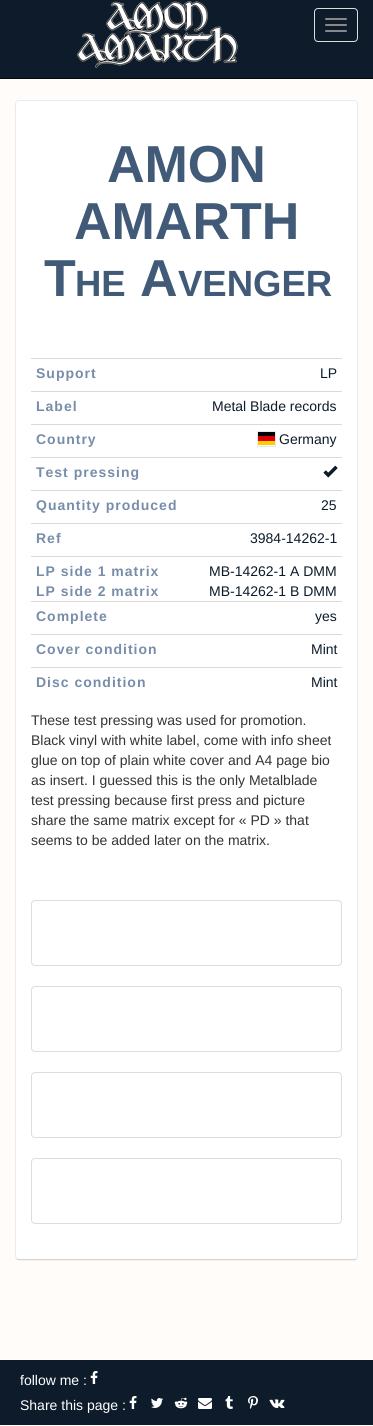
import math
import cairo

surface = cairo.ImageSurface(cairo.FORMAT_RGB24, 373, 1426)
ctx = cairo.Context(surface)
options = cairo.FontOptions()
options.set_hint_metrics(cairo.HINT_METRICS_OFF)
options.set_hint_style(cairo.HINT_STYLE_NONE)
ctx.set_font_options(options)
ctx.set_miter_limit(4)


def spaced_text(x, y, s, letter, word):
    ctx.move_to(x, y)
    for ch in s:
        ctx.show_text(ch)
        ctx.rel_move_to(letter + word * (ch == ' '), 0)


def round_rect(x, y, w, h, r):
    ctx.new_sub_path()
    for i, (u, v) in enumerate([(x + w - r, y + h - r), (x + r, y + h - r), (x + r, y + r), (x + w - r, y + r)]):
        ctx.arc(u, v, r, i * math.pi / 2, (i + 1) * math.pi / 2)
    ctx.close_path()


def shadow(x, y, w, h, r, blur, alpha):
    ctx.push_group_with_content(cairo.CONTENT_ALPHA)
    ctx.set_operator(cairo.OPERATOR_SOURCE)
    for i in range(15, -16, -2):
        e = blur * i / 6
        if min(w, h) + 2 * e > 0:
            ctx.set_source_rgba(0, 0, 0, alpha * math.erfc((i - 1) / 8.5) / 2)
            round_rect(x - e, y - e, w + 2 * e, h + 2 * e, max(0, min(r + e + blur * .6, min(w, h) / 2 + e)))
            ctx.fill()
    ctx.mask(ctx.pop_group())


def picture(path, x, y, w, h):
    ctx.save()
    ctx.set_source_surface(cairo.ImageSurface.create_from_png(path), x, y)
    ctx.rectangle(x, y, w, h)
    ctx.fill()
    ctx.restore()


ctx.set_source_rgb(1, 0.988, 0.98)
ctx.paint()
ctx.set_source_rgb(0.051, 0.106, 0.165)
ctx.rectangle(0, 0, 373, 78)
ctx.fill()
ctx.set_source_rgb(0.031, 0.031, 0.031)
ctx.rectangle(0, 78, 373, 1)
ctx.fill()
picture("img1.png", 77, 1, 161, 67)
round_rect(314.5, 8.5, 43, 33, 3.5)
ctx.set_source_rgb(0.867, 0.867, 0.867)
ctx.set_line_width(1)
ctx.stroke()
ctx.set_source_rgb(0.533, 0.533, 0.533)
round_rect(325, 18, 22, 2, 1)
ctx.fill()
round_rect(325, 24, 22, 2, 1)
ctx.fill()
round_rect(325, 30, 22, 2, 1)
ctx.fill()
ctx.set_source_rgb(0, 0, 0)
shadow(15, 101, 343, 1160, 4, 0.5, 0.05)
ctx.set_source_rgb(1, 1, 1)
round_rect(15, 100, 343, 1160, 4)
ctx.fill()
ctx.new_path()
ctx.move_to(356.5, 1258.5)
ctx.curve_to(356, 1259, 355, 1259.5, 354, 1259.5)
ctx.line_to(19, 1259.5)
ctx.curve_to(18, 1259.5, 17, 1259, 16.5, 1258.5)
ctx.set_source_rgba(0, 0, 0, 0.17)
ctx.stroke()
ctx.new_path()
ctx.move_to(16.5, 1258.5)
ctx.line_to(15.5, 1256)
ctx.line_to(15.5, 104)
ctx.curve_to(15.5, 102, 17, 100.5, 19, 100.5)
ctx.line_to(354, 100.5)
ctx.curve_to(356, 100.5, 357.5, 102, 357.5, 104)
ctx.line_to(357.5, 1256)
ctx.line_to(356.5, 1258.5)
ctx.set_source_rgb(0.906, 0.925, 0.953)
ctx.stroke()
ctx.select_font_face("Liberation Sans", cairo.FONT_SLANT_NORMAL, cairo.FONT_WEIGHT_BOLD)
ctx.set_font_size(52)
ctx.set_source_rgb(0.255, 0.353, 0.467)
ctx.move_to(107, 182)
ctx.show_text("AMON")
ctx.move_to(74, 239)
ctx.show_text("AMARTH")
ctx.move_to(44, 296)
ctx.show_text("T")
ctx.set_font_size(36.5)
ctx.move_to(75, 296)
ctx.show_text("HE")
ctx.set_font_size(52)
ctx.move_to(140, 296)
ctx.show_text("A")
ctx.set_font_size(36.5)
ctx.move_to(178, 296)
ctx.show_text("VENGER")
ctx.set_source_rgb(0.863, 0.851, 0.851)
ctx.rectangle(31, 358, 311, 1)
ctx.fill()
ctx.set_font_size(14)
ctx.set_source_rgb(0.467, 0.553, 0.663)
spaced_text(36, 378, "Support", 1, 0)
ctx.select_font_face("Liberation Sans")
ctx.set_source_rgb(0.051, 0.106, 0.165)
ctx.move_to(320, 378)
ctx.show_text("LP")
ctx.select_font_face("Liberation Sans", cairo.FONT_SLANT_NORMAL, cairo.FONT_WEIGHT_BOLD)
ctx.set_source_rgb(0.467, 0.553, 0.663)
spaced_text(36, 411, "Label", 1, 0)
ctx.set_source_rgb(0.863, 0.851, 0.851)
ctx.rectangle(31, 391, 311, 1)
ctx.fill()
ctx.select_font_face("Liberation Sans")
ctx.set_source_rgb(0.051, 0.106, 0.165)
ctx.move_to(212, 411)
ctx.show_text("Metal Blade records")
ctx.select_font_face("Liberation Sans", cairo.FONT_SLANT_NORMAL, cairo.FONT_WEIGHT_BOLD)
ctx.set_source_rgb(0.467, 0.553, 0.663)
spaced_text(36, 444, "Country", 1, 0)
ctx.set_source_rgb(0.863, 0.851, 0.851)
ctx.rectangle(31, 424, 311, 1)
ctx.fill()
ctx.set_source_rgb(1, 0.808, 0)
ctx.rectangle(258, 441, 17, 4)
ctx.fill()
ctx.set_source_rgb(0, 0, 0)
ctx.rectangle(258, 432, 17, 4)
ctx.fill()
ctx.set_source_rgb(0.867, 0, 0)
ctx.rectangle(258, 436, 17, 5)
ctx.fill()
ctx.rectangle(257.5, 431.5, 18, 15)
ctx.set_source_rgb(0.914, 0.914, 0.914)
ctx.stroke()
ctx.select_font_face("Liberation Sans")
ctx.set_source_rgb(0.051, 0.106, 0.165)
ctx.move_to(279, 444)
ctx.show_text("Germany")
ctx.set_source_rgb(0.863, 0.851, 0.851)
ctx.rectangle(31, 457, 311, 1)
ctx.fill()
picture("img2.png", 323, 465, 15, 13)
ctx.select_font_face("Liberation Sans", cairo.FONT_SLANT_NORMAL, cairo.FONT_WEIGHT_BOLD)
ctx.set_source_rgb(0.467, 0.553, 0.663)
spaced_text(36, 477, "Test pressing", 1, 0)
spaced_text(36, 510, "Quantity produced", 1, 0)
ctx.set_source_rgb(0.863, 0.851, 0.851)
ctx.rectangle(31, 490, 311, 1)
ctx.fill()
ctx.select_font_face("Liberation Sans")
ctx.set_source_rgb(0.051, 0.106, 0.165)
ctx.move_to(321, 510)
ctx.show_text("25")
ctx.select_font_face("Liberation Sans", cairo.FONT_SLANT_NORMAL, cairo.FONT_WEIGHT_BOLD)
ctx.set_source_rgb(0.467, 0.553, 0.663)
spaced_text(36, 543, "Ref", 1, 0)
ctx.set_source_rgb(0.863, 0.851, 0.851)
ctx.rectangle(31, 523, 311, 1)
ctx.fill()
ctx.select_font_face("Liberation Sans")
ctx.set_source_rgb(0.051, 0.106, 0.165)
ctx.move_to(250, 543)
ctx.show_text("3984-14262-1")
ctx.select_font_face("Liberation Sans", cairo.FONT_SLANT_NORMAL, cairo.FONT_WEIGHT_BOLD)
ctx.set_source_rgb(0.467, 0.553, 0.663)
spaced_text(36, 576, "LP side 1 matrix", 1, 0)
ctx.set_source_rgb(0.863, 0.851, 0.851)
ctx.rectangle(31, 556, 311, 1)
ctx.fill()
ctx.select_font_face("Liberation Sans")
ctx.set_source_rgb(0.051, 0.106, 0.165)
ctx.move_to(209, 576)
ctx.show_text("MB-14262-1 A DMM")
ctx.select_font_face("Liberation Sans", cairo.FONT_SLANT_NORMAL, cairo.FONT_WEIGHT_BOLD)
ctx.set_source_rgb(0.467, 0.553, 0.663)
spaced_text(36, 596, "LP side 2 matrix", 1, 0)
ctx.select_font_face("Liberation Sans")
ctx.set_source_rgb(0.051, 0.106, 0.165)
ctx.move_to(209, 596)
ctx.show_text("MB-14262-1 B DMM")
ctx.set_source_rgb(0.863, 0.851, 0.851)
ctx.rectangle(31, 601, 311, 1)
ctx.fill()
ctx.select_font_face("Liberation Sans", cairo.FONT_SLANT_NORMAL, cairo.FONT_WEIGHT_BOLD)
ctx.set_source_rgb(0.467, 0.553, 0.663)
spaced_text(36, 621, "Complete", 1, 0)
ctx.select_font_face("Liberation Sans")
ctx.set_source_rgb(0.051, 0.106, 0.165)
ctx.move_to(315, 621)
ctx.show_text("yes")
ctx.select_font_face("Liberation Sans", cairo.FONT_SLANT_NORMAL, cairo.FONT_WEIGHT_BOLD)
ctx.set_source_rgb(0.467, 0.553, 0.663)
spaced_text(36, 654, "Cover condition", 1, 0)
ctx.set_source_rgb(0.863, 0.851, 0.851)
ctx.rectangle(31, 634, 311, 1)
ctx.fill()
ctx.select_font_face("Liberation Sans")
ctx.set_source_rgb(0.051, 0.106, 0.165)
ctx.move_to(311, 654)
ctx.show_text("Mint")
ctx.select_font_face("Liberation Sans", cairo.FONT_SLANT_NORMAL, cairo.FONT_WEIGHT_BOLD)
ctx.set_source_rgb(0.467, 0.553, 0.663)
spaced_text(36, 687, "Disc condition", 1, 0)
ctx.set_source_rgb(0.863, 0.851, 0.851)
ctx.rectangle(31, 667, 311, 1)
ctx.fill()
ctx.select_font_face("Liberation Sans")
ctx.set_source_rgb(0.051, 0.106, 0.165)
ctx.move_to(311, 687)
ctx.show_text("Mint")
ctx.set_source_rgb(0.2, 0.2, 0.2)
ctx.move_to(31, 725)
ctx.show_text("These test pressing was used for promotion.")
ctx.move_to(31, 745)
ctx.show_text("Black vinyl with white label, come with info sheet")
ctx.move_to(31, 765)
ctx.show_text("glue on top of plain white cover and A4 page bio")
ctx.move_to(31, 785)
ctx.show_text("as insert. I guessed this is the only Metalblade")
ctx.move_to(31, 805)
ctx.show_text("test pressing because first press and picture")
ctx.move_to(31, 825)
ctx.show_text("share the same matrix except for « PD » that")
ctx.move_to(31, 845)
ctx.show_text("seems to be added later on the matrix.")
round_rect(31.5, 900.5, 310, 65, 3.5)
ctx.set_source_rgb(0.867, 0.867, 0.867)
ctx.stroke()
round_rect(31.5, 986.5, 310, 65, 3.5)
ctx.stroke()
round_rect(31.5, 1072.5, 310, 65, 3.5)
ctx.stroke()
round_rect(31.5, 1158.5, 310, 65, 3.5)
ctx.stroke()
ctx.set_source_rgb(0.051, 0.106, 0.165)
ctx.rectangle(0, 1360, 373, 65)
ctx.fill()
ctx.set_source_rgb(1, 1, 1)
ctx.move_to(20, 1385)
ctx.show_text("follow me :")
picture("img3.png", 90, 1371, 8, 13)
ctx.move_to(20, 1410)
ctx.show_text("Share this page :")
picture("img3.png", 129, 1396, 8, 13)
picture("img4.png", 151, 1398, 12, 10)
picture("img5.png", 174, 1397, 14, 12)
picture("img6.png", 198, 1398, 14, 11)
picture("img7.png", 225, 1396, 8, 13)
picture("img8.png", 248, 1396, 10, 13)
picture("img9.png", 269, 1399, 16, 9)
surface.write_to_png("page.png")
